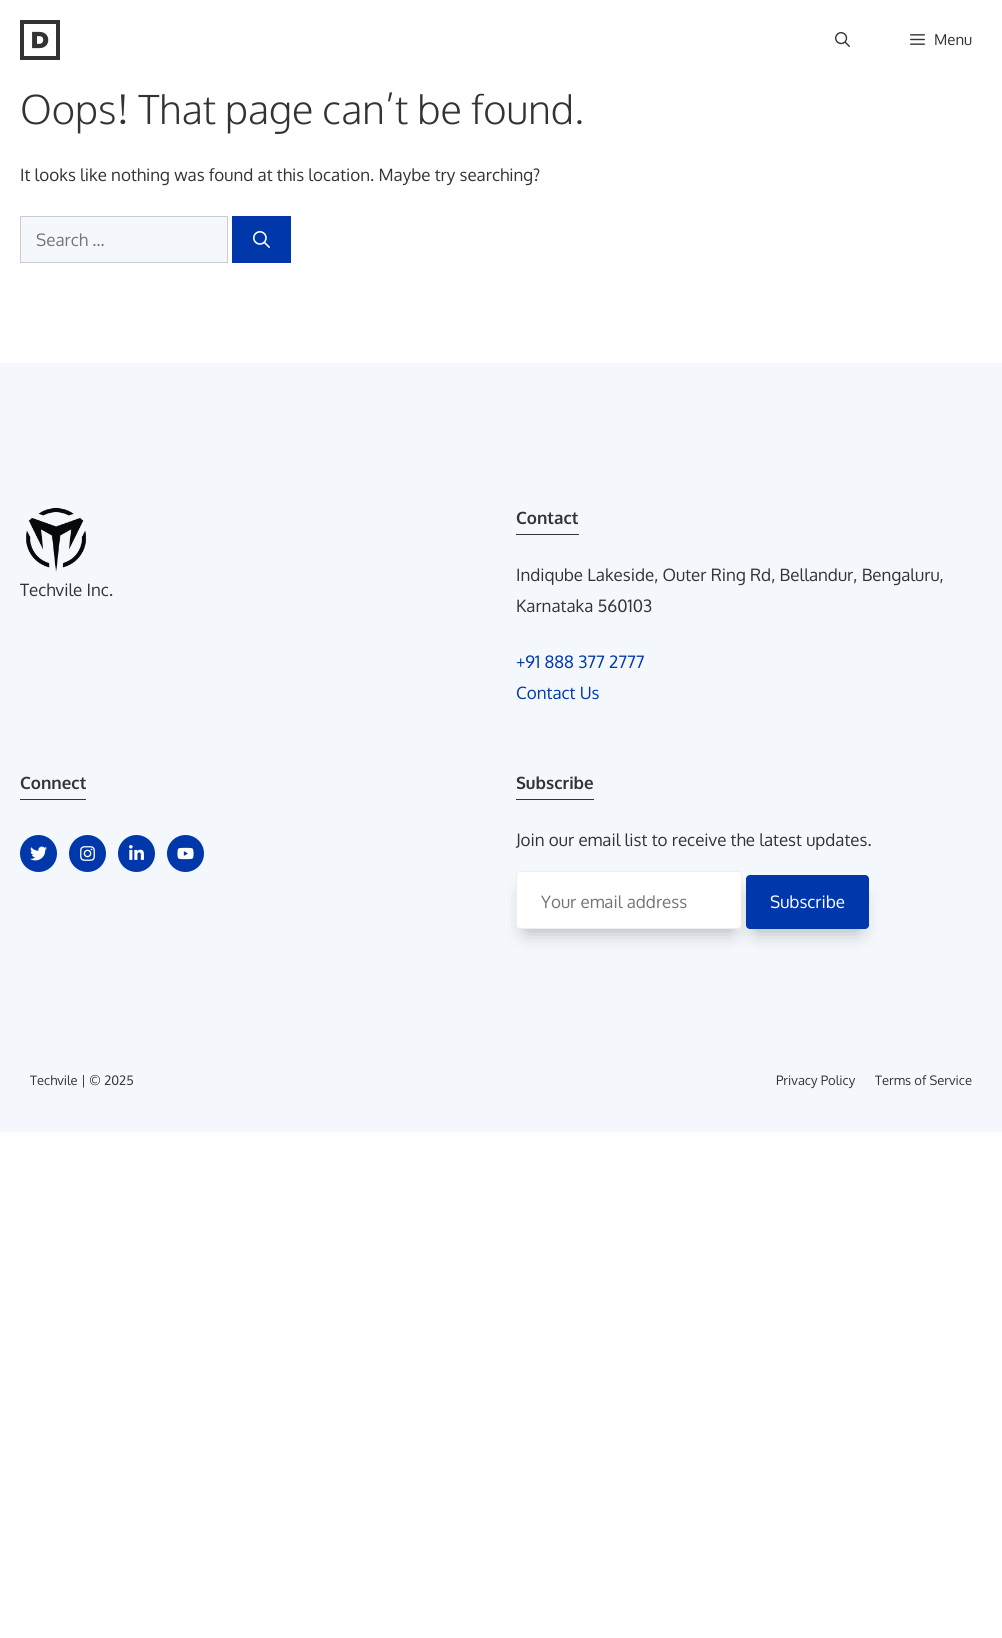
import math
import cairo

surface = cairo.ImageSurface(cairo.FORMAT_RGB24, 1002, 1638)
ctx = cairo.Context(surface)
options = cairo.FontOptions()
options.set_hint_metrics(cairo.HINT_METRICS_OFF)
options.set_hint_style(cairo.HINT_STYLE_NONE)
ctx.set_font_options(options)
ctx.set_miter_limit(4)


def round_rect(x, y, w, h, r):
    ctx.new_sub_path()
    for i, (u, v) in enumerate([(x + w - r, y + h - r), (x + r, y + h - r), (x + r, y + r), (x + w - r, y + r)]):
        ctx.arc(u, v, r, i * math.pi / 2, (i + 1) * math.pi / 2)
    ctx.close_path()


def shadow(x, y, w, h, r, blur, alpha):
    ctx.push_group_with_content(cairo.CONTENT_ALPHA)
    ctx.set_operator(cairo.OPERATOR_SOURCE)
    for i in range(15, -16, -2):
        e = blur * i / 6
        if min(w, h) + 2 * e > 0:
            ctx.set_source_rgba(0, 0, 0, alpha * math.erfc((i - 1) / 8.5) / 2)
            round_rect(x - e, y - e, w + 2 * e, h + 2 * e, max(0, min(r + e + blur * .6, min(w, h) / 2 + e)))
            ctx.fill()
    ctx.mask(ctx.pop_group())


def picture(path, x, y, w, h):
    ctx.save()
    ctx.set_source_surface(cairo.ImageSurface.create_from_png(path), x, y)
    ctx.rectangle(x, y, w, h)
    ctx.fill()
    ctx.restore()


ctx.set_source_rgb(1, 1, 1)
ctx.paint()
picture("img1.png", 20, 20, 40, 40)
picture("img2.png", 835, 32, 15, 15)
picture("img3.png", 910, 34, 15, 11)
ctx.select_font_face("Oxygen")
ctx.set_font_size(15)
ctx.set_source_rgb(0.2, 0.2, 0.2)
ctx.move_to(934, 45)
ctx.show_text("Menu")
ctx.select_font_face("Oxygen Light")
ctx.set_font_size(40)
ctx.move_to(20, 124)
ctx.show_text("Oops! That page can’t be found.")
ctx.select_font_face("Oxygen")
ctx.set_font_size(17)
ctx.move_to(20, 181)
ctx.show_text("It looks like nothing was found at this location. Maybe try searching?")
ctx.set_source_rgb(0.957, 0.969, 0.988)
ctx.rectangle(20.5, 216.5, 207, 46)
ctx.fill_preserve()
ctx.set_source_rgb(0.8, 0.8, 0.8)
ctx.set_line_width(1)
ctx.stroke()
ctx.set_source_rgb(0.459, 0.459, 0.459)
ctx.move_to(36, 246)
ctx.show_text("Search …")
ctx.set_source_rgb(0, 0.22, 0.671)
ctx.rectangle(232, 216, 59, 47)
ctx.fill()
picture("img4.png", 253, 231, 17, 17)
ctx.set_source_rgb(0.957, 0.969, 0.988)
ctx.rectangle(0, 363, 1002, 769)
ctx.fill()
picture("img5.png", 26, 507, 61, 65)
ctx.set_source_rgb(0.2, 0.2, 0.2)
ctx.move_to(20, 596)
ctx.show_text("Techvile Inc.")
ctx.rectangle(516, 534, 63, 1)
ctx.fill()
ctx.select_font_face("Oxygen", cairo.FONT_SLANT_NORMAL, cairo.FONT_WEIGHT_BOLD)
ctx.move_to(516, 524)
ctx.show_text("Contact")
ctx.select_font_face("Oxygen")
ctx.move_to(516, 581)
ctx.show_text("Indiqube Lakeside, Outer Ring Rd, Bellandur, Bengaluru,")
ctx.move_to(516, 612)
ctx.show_text("Karnataka 560103")
ctx.set_source_rgb(0, 0.22, 0.671)
ctx.move_to(516, 668)
ctx.show_text("+91 888 377 2777")
ctx.move_to(516, 699)
ctx.show_text("Contact Us")
ctx.set_source_rgb(0.2, 0.2, 0.2)
ctx.rectangle(20, 799, 66, 1)
ctx.fill()
ctx.select_font_face("Oxygen", cairo.FONT_SLANT_NORMAL, cairo.FONT_WEIGHT_BOLD)
ctx.move_to(20, 789)
ctx.show_text("Connect")
ctx.set_source_rgb(0, 0.22, 0.671)
ctx.new_path()
ctx.arc(38.5, 853.5, 18.5, 0, 2 * math.pi)
ctx.fill()
picture("img6.png", 30, 846, 17, 15)
ctx.arc(87.5, 853.5, 18.5, 0, 2 * math.pi)
ctx.fill()
picture("img7.png", 80, 846, 15, 15)
ctx.arc(136.5, 853.5, 18.5, 0, 2 * math.pi)
ctx.fill()
picture("img8.png", 129, 845, 15, 15)
ctx.arc(185.5, 853.5, 18.5, 0, 2 * math.pi)
ctx.fill()
picture("img9.png", 177, 847, 17, 13)
ctx.set_source_rgb(0.2, 0.2, 0.2)
ctx.rectangle(516, 799, 78, 1)
ctx.fill()
ctx.move_to(516, 789)
ctx.show_text("Subscribe")
ctx.select_font_face("Oxygen")
ctx.move_to(516, 846)
ctx.show_text("Join our email list to receive the latest updates.")
ctx.set_source_rgb(0, 0, 0)
shadow(526, 893, 206, 38, 0, 10, 0.3)
ctx.set_source_rgb(1, 1, 1)
round_rect(516.5, 871.5, 225, 57, 3.5)
ctx.fill_preserve()
ctx.set_source_rgb(0.933, 0.933, 0.933)
ctx.stroke()
ctx.set_source_rgb(0.459, 0.459, 0.459)
ctx.move_to(541, 908)
ctx.show_text("Your email address")
ctx.set_source_rgb(0, 0, 0)
shadow(756, 897, 103, 34, 0, 10, 0.3)
ctx.set_source_rgb(0, 0.22, 0.671)
round_rect(746, 875, 123, 54, 4)
ctx.fill()
ctx.set_source_rgb(1, 1, 1)
ctx.move_to(770, 908)
ctx.show_text("Subscribe")
ctx.set_font_size(13)
ctx.set_source_rgb(0.2, 0.2, 0.2)
ctx.move_to(30, 1085)
ctx.show_text("Techvile | © 2025")
ctx.move_to(776, 1085)
ctx.show_text("Privacy Policy")
ctx.move_to(875, 1085)
ctx.show_text("Terms of Service")
surface.write_to_png("page.png")
